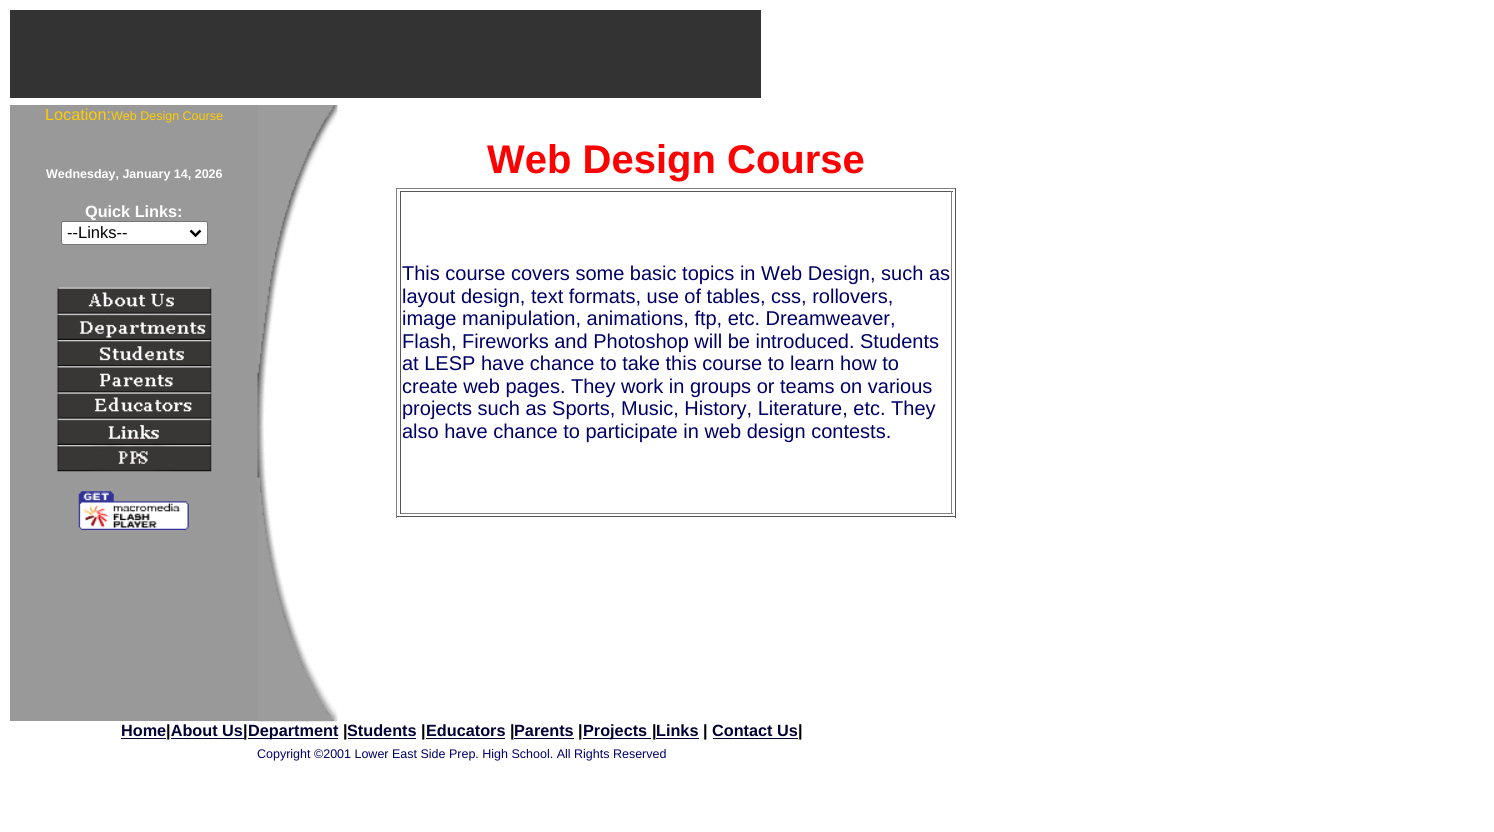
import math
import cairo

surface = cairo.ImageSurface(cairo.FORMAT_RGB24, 1494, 832)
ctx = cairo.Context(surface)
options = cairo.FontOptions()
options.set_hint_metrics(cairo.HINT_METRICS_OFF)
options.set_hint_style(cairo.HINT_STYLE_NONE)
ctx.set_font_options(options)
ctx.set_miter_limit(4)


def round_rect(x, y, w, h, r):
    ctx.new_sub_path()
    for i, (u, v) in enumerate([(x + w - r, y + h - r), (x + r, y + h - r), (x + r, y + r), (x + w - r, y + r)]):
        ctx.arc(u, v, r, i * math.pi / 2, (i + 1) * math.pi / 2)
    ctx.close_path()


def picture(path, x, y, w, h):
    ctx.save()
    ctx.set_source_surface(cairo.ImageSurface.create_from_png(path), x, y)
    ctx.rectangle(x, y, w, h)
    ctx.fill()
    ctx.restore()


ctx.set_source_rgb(1, 1, 1)
ctx.paint()
ctx.set_source_rgb(0.2, 0.2, 0.2)
ctx.rectangle(10, 10, 751, 88)
ctx.fill()
ctx.set_source_rgb(0.6, 0.6, 0.6)
ctx.rectangle(10, 105, 248, 616)
ctx.fill()
ctx.select_font_face("Liberation Sans")
ctx.set_font_size(16.25)
ctx.set_source_rgb(1, 0.8, 0)
ctx.move_to(45, 120)
ctx.show_text("Location:")
ctx.set_font_size(12.5)
ctx.move_to(111, 120)
ctx.show_text("Web Design Course")
ctx.select_font_face("Liberation Sans", cairo.FONT_SLANT_NORMAL, cairo.FONT_WEIGHT_BOLD)
ctx.set_source_rgb(1, 1, 1)
ctx.move_to(46, 178)
ctx.show_text("Wednesday, January 14, 2026")
picture("img1.png", 257, 105, 81, 617)
ctx.set_font_size(40)
ctx.set_source_rgb(1, 0, 0)
ctx.move_to(487, 173)
ctx.show_text("Web Design Course")
ctx.set_source_rgb(0.502, 0.502, 0.502)
ctx.rectangle(396, 188, 560, 1)
ctx.fill()
ctx.set_source_rgb(0.333, 0.333, 0.333)
ctx.rectangle(955, 188, 1, 330)
ctx.fill()
ctx.rectangle(396, 516, 560, 1)
ctx.fill()
ctx.set_source_rgb(0.502, 0.502, 0.502)
ctx.rectangle(396, 188, 1, 330)
ctx.fill()
ctx.set_source_rgb(0.333, 0.333, 0.333)
ctx.rectangle(400, 191, 553, 1)
ctx.fill()
ctx.set_source_rgb(0.502, 0.502, 0.502)
ctx.rectangle(951, 191, 1, 323)
ctx.fill()
ctx.rectangle(400, 513, 553, 1)
ctx.fill()
ctx.set_source_rgb(0.333, 0.333, 0.333)
ctx.rectangle(400, 191, 1, 323)
ctx.fill()
ctx.select_font_face("Liberation Sans")
ctx.set_font_size(20)
ctx.set_source_rgb(0, 0, 0.4)
ctx.move_to(402, 280)
ctx.show_text("This course covers some basic topics in Web Design, such as")
ctx.move_to(402, 303)
ctx.show_text("layout design, text formats, use of tables, css, rollovers,")
ctx.move_to(402, 325)
ctx.show_text("image manipulation, animations, ftp, etc. Dreamweaver,")
ctx.move_to(402, 348)
ctx.show_text("Flash, Fireworks and Photoshop will be introduced. Students")
ctx.move_to(402, 370)
ctx.show_text("at LESP have chance to take this course to learn how to")
ctx.move_to(402, 393)
ctx.show_text("create web pages. They work in groups or teams on various")
ctx.move_to(402, 415)
ctx.show_text("projects such as Sports, Music, History, Literature, etc. They")
ctx.move_to(402, 438)
ctx.show_text("also have chance to participate in web design contests.")
ctx.select_font_face("Liberation Sans", cairo.FONT_SLANT_NORMAL, cairo.FONT_WEIGHT_BOLD)
ctx.set_font_size(16.25)
ctx.set_source_rgb(1, 1, 1)
ctx.move_to(85, 217)
ctx.show_text("Quick Links:")
round_rect(61.5, 221.5, 146, 23, 2)
ctx.fill_preserve()
ctx.set_source_rgb(0.463, 0.463, 0.463)
ctx.set_line_width(1)
ctx.stroke()
ctx.new_path()
ctx.move_to(190.5, 230.5)
ctx.line_to(195.5, 235.5)
ctx.line_to(200.5, 230.5)
ctx.set_source_rgb(0, 0, 0)
ctx.set_line_width(2.5)
ctx.stroke()
ctx.select_font_face("Liberation Sans")
ctx.set_font_size(16.5)
ctx.move_to(67, 238)
ctx.show_text("--Links--")
picture("img2.png", 57, 287, 155, 27)
picture("img3.png", 57, 313, 155, 27)
picture("img4.png", 57, 340, 155, 27)
picture("img5.png", 57, 366, 155, 27)
picture("img6.png", 57, 392, 155, 27)
picture("img7.png", 57, 418, 155, 27)
picture("img8.png", 57, 445, 155, 27)
picture("img9.png", 78, 491, 111, 39)
ctx.select_font_face("Liberation Sans", cairo.FONT_SLANT_NORMAL, cairo.FONT_WEIGHT_BOLD)
ctx.set_font_size(16.25)
ctx.set_source_rgb(0, 0, 0.2)
ctx.move_to(121, 736)
ctx.show_text("Home About Us")
ctx.set_source_rgb(0, 0, 0)
ctx.move_to(166, 736)
ctx.show_text("|")
ctx.set_source_rgb(0, 0, 0.2)
ctx.rectangle(121, 738, 45, 1)
ctx.fill()
ctx.set_source_rgb(0, 0, 0)
ctx.move_to(243, 736)
ctx.show_text("|")
ctx.set_source_rgb(0, 0, 0.2)
ctx.rectangle(171, 738, 73, 1)
ctx.fill()
ctx.rectangle(248, 738, 90, 1)
ctx.fill()
ctx.move_to(248, 736)
ctx.show_text("Department")
ctx.set_source_rgb(0, 0, 0)
ctx.move_to(343, 736)
ctx.show_text("|")
ctx.set_source_rgb(0, 0, 0.2)
ctx.rectangle(348, 738, 68, 1)
ctx.fill()
ctx.move_to(347, 736)
ctx.show_text("Students")
ctx.set_source_rgb(0, 0, 0)
ctx.move_to(421, 736)
ctx.show_text("|")
ctx.set_source_rgb(0, 0, 0.2)
ctx.rectangle(426, 738, 79, 1)
ctx.fill()
ctx.move_to(426, 736)
ctx.show_text("Educators")
ctx.set_source_rgb(0, 0, 0)
ctx.move_to(510, 736)
ctx.show_text("|")
ctx.set_source_rgb(0, 0, 0.2)
ctx.rectangle(514, 738, 60, 1)
ctx.fill()
ctx.move_to(514, 736)
ctx.show_text("Parents")
ctx.set_source_rgb(0, 0, 0)
ctx.move_to(578, 736)
ctx.show_text("|")
ctx.set_source_rgb(0, 0, 0.2)
ctx.rectangle(583, 738, 68, 1)
ctx.fill()
ctx.move_to(583, 736)
ctx.show_text("Projects")
ctx.set_source_rgb(0, 0, 0)
ctx.move_to(652, 736)
ctx.show_text("|")
ctx.set_source_rgb(0, 0, 0.2)
ctx.rectangle(656, 738, 43, 1)
ctx.fill()
ctx.move_to(656, 736)
ctx.show_text("Links")
ctx.set_source_rgb(0, 0, 0)
ctx.move_to(703, 736)
ctx.show_text("|")
ctx.set_source_rgb(0, 0, 0.2)
ctx.move_to(712, 736)
ctx.show_text("Contact Us")
ctx.set_source_rgb(0, 0, 0)
ctx.move_to(798, 736)
ctx.show_text("|")
ctx.set_source_rgb(0, 0, 0.2)
ctx.rectangle(713, 738, 85, 1)
ctx.fill()
ctx.select_font_face("Liberation Sans")
ctx.set_font_size(12.5)
ctx.set_source_rgb(0, 0, 0.4)
ctx.move_to(257, 758)
ctx.show_text("Copyright ©2001 Lower East Side Prep. High School. All Rights Reserved")
surface.write_to_png("page.png")
